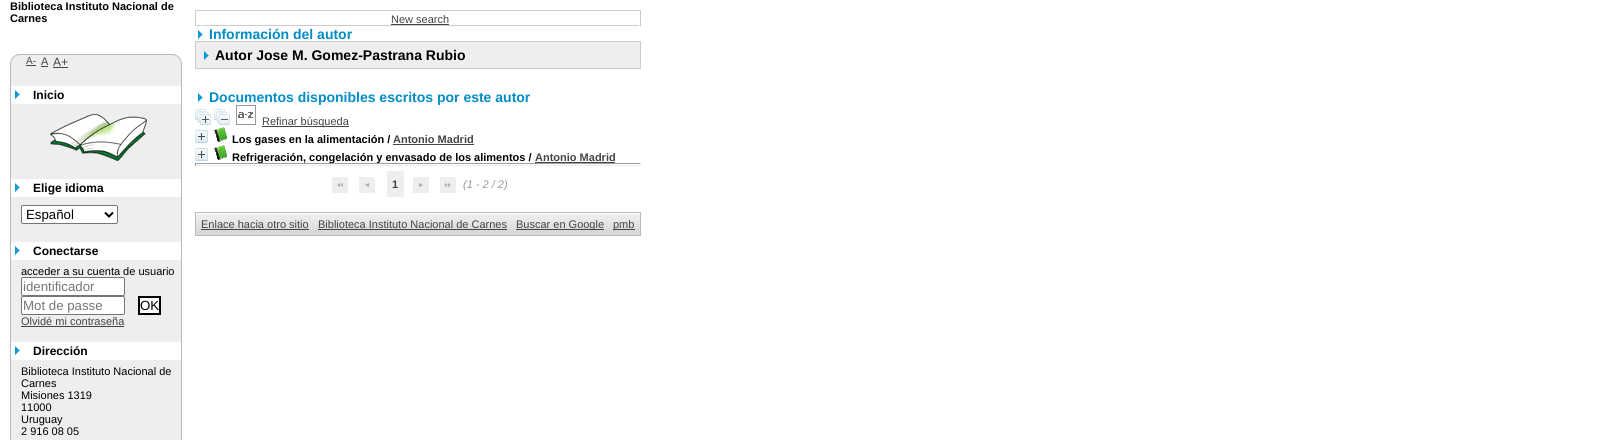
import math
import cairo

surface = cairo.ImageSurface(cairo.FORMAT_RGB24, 1607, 440)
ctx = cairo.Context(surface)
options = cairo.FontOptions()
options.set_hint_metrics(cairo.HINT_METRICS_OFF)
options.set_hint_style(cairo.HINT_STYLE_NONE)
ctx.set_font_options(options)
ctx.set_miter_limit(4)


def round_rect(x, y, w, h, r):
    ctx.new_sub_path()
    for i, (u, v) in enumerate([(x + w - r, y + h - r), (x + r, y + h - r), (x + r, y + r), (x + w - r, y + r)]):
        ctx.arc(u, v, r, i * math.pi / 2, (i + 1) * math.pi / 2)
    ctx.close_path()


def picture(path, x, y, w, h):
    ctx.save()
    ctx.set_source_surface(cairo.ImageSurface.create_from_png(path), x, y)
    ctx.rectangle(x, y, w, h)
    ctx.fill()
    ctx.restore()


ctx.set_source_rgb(1, 1, 1)
ctx.paint()
ctx.select_font_face("Liberation Sans", cairo.FONT_SLANT_NORMAL, cairo.FONT_WEIGHT_BOLD)
ctx.set_font_size(11)
ctx.set_source_rgb(0, 0, 0)
ctx.move_to(10, 10)
ctx.show_text("Biblioteca Instituto Nacional de")
ctx.move_to(10, 22)
ctx.show_text("Carnes")
ctx.set_source_rgb(0.933, 0.933, 0.933)
round_rect(10.5, 54.5, 171, 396, 9.5)
ctx.fill_preserve()
ctx.set_source_rgb(0.733, 0.733, 0.733)
ctx.set_line_width(1)
ctx.stroke()
ctx.select_font_face("Liberation Sans")
ctx.set_font_size(10)
ctx.set_source_rgb(0.267, 0.267, 0.267)
ctx.move_to(26, 64)
ctx.show_text("A-")
ctx.rectangle(26, 65, 10, 1)
ctx.fill()
ctx.set_font_size(11)
ctx.move_to(41, 65)
ctx.show_text("A")
ctx.rectangle(41, 66, 7, 1)
ctx.fill()
ctx.set_font_size(12)
ctx.move_to(53, 66)
ctx.show_text("A+")
ctx.rectangle(53, 67, 15, 1)
ctx.fill()
ctx.set_source_rgb(1, 1, 1)
ctx.rectangle(11, 86, 170, 18)
ctx.fill()
picture("img1.png", 15, 90, 5, 9)
ctx.select_font_face("Liberation Sans", cairo.FONT_SLANT_NORMAL, cairo.FONT_WEIGHT_BOLD)
ctx.set_source_rgb(0, 0, 0)
ctx.move_to(33, 99)
ctx.show_text("Inicio")
picture("img2.png", 50, 114, 97, 47)
ctx.set_source_rgb(1, 1, 1)
ctx.rectangle(11, 179, 170, 18)
ctx.fill()
picture("img1.png", 15, 183, 5, 9)
ctx.set_source_rgb(0, 0, 0)
ctx.move_to(33, 192)
ctx.show_text("Elige idioma")
ctx.set_source_rgb(1, 1, 1)
round_rect(21.5, 205.5, 96, 18, 1.5)
ctx.fill_preserve()
ctx.set_source_rgb(0.463, 0.463, 0.463)
ctx.stroke()
ctx.new_path()
ctx.move_to(105, 212.5)
ctx.line_to(109, 216.5)
ctx.line_to(113, 212.5)
ctx.set_source_rgb(0, 0, 0)
ctx.set_line_width(2)
ctx.stroke()
ctx.select_font_face("Liberation Sans")
ctx.set_font_size(13.25)
ctx.move_to(26, 219)
ctx.show_text("Español")
ctx.set_source_rgb(1, 1, 1)
ctx.rectangle(11, 242, 170, 18)
ctx.fill()
picture("img1.png", 15, 246, 5, 9)
ctx.select_font_face("Liberation Sans", cairo.FONT_SLANT_NORMAL, cairo.FONT_WEIGHT_BOLD)
ctx.set_font_size(12)
ctx.set_source_rgb(0, 0, 0)
ctx.move_to(33, 255)
ctx.show_text("Conectarse")
ctx.select_font_face("Liberation Sans")
ctx.set_font_size(11)
ctx.move_to(21, 275)
ctx.show_text("acceder a su cuenta de usuario")
ctx.set_source_rgb(1, 1, 1)
round_rect(21.5, 277.5, 103, 18, 1.5)
ctx.fill_preserve()
ctx.set_source_rgb(0.463, 0.463, 0.463)
ctx.set_line_width(1)
ctx.stroke()
ctx.set_font_size(13.25)
ctx.set_source_rgb(0.459, 0.459, 0.459)
ctx.move_to(23, 291)
ctx.show_text("identificador")
ctx.set_source_rgb(1, 1, 1)
round_rect(21.5, 296.5, 103, 18, 1.5)
ctx.fill_preserve()
ctx.set_source_rgb(0.463, 0.463, 0.463)
ctx.stroke()
ctx.set_source_rgb(0.459, 0.459, 0.459)
ctx.move_to(23, 310)
ctx.show_text("Mot de passe")
ctx.set_source_rgb(1, 1, 1)
ctx.rectangle(139, 297, 21, 17)
ctx.fill_preserve()
ctx.set_source_rgb(0, 0, 0)
ctx.set_line_width(2)
ctx.stroke()
ctx.move_to(140, 310)
ctx.show_text("OK")
ctx.set_font_size(11)
ctx.set_source_rgb(0.267, 0.267, 0.267)
ctx.move_to(21, 325)
ctx.show_text("Olvidé mi contraseña")
ctx.rectangle(21, 326, 103, 1)
ctx.fill()
ctx.set_source_rgb(1, 1, 1)
ctx.rectangle(11, 342, 170, 18)
ctx.fill()
picture("img1.png", 15, 346, 5, 9)
ctx.select_font_face("Liberation Sans", cairo.FONT_SLANT_NORMAL, cairo.FONT_WEIGHT_BOLD)
ctx.set_font_size(12)
ctx.set_source_rgb(0, 0, 0)
ctx.move_to(33, 355)
ctx.show_text("Dirección")
ctx.select_font_face("Liberation Sans")
ctx.set_font_size(11)
ctx.move_to(21, 375)
ctx.show_text("Biblioteca Instituto Nacional de")
ctx.move_to(21, 387)
ctx.show_text("Carnes")
ctx.move_to(21, 399)
ctx.show_text("Misiones 1319")
ctx.move_to(21, 411)
ctx.show_text("11000")
ctx.move_to(21, 423)
ctx.show_text("Uruguay")
ctx.move_to(21, 435)
ctx.show_text("2 916 08 05")
ctx.rectangle(195.5, 10.5, 445, 15)
ctx.set_source_rgb(0.8, 0.8, 0.8)
ctx.set_line_width(1)
ctx.stroke()
ctx.set_source_rgb(1, 1, 1)
ctx.rectangle(639, 25, 1, 1)
ctx.fill()
ctx.rectangle(201, 25, 1, 1)
ctx.fill()
ctx.set_source_rgb(0.267, 0.267, 0.267)
ctx.move_to(391, 23)
ctx.show_text("New search")
ctx.rectangle(391, 24, 58, 1)
ctx.fill()
picture("img1.png", 198, 30, 5, 9)
ctx.select_font_face("Liberation Sans", cairo.FONT_SLANT_NORMAL, cairo.FONT_WEIGHT_BOLD)
ctx.set_font_size(14)
ctx.set_source_rgb(0, 0.549, 0.776)
ctx.move_to(209, 39)
ctx.show_text("Información del autor")
ctx.set_source_rgb(0.933, 0.933, 0.933)
ctx.rectangle(195.5, 41.5, 445, 27)
ctx.fill_preserve()
ctx.set_source_rgb(0.8, 0.8, 0.8)
ctx.stroke()
picture("img3.png", 204, 51, 5, 9)
ctx.set_source_rgb(0, 0, 0)
ctx.move_to(215, 60)
ctx.show_text("Autor Jose M. Gomez-Pastrana Rubio")
picture("img1.png", 198, 93, 5, 9)
ctx.set_source_rgb(0, 0.549, 0.776)
ctx.move_to(209, 102)
ctx.show_text("Documentos disponibles escritos por este autor")
picture("img4.png", 195, 109, 16, 16)
picture("img5.png", 214, 109, 16, 16)
picture("img6.png", 236, 105, 20, 20)
ctx.set_source_rgb(0.267, 0.267, 0.267)
ctx.rectangle(262, 126, 87, 1)
ctx.fill()
ctx.select_font_face("Liberation Sans")
ctx.set_font_size(11)
ctx.move_to(262, 125)
ctx.show_text("Refinar búsqueda")
picture("img7.png", 195, 130, 13, 13)
picture("img8.png", 214, 127, 13, 15)
ctx.select_font_face("Liberation Sans", cairo.FONT_SLANT_NORMAL, cairo.FONT_WEIGHT_BOLD)
ctx.set_source_rgb(0, 0, 0)
ctx.move_to(232, 143)
ctx.show_text("Los gases en la alimentación /")
ctx.set_source_rgb(0.267, 0.267, 0.267)
ctx.move_to(393, 143)
ctx.show_text("Antonio Madrid")
ctx.rectangle(393, 144, 81, 1)
ctx.fill()
picture("img7.png", 195, 148, 13, 13)
picture("img8.png", 214, 145, 13, 15)
ctx.set_source_rgb(0, 0, 0)
ctx.move_to(232, 161)
ctx.show_text("Refrigeración, congelación y envasado de los alimentos /")
ctx.set_source_rgb(0.267, 0.267, 0.267)
ctx.move_to(535, 161)
ctx.show_text("Antonio Madrid")
ctx.rectangle(535, 162, 80, 1)
ctx.fill()
ctx.set_source_rgb(0.624, 0.624, 0.624)
ctx.rectangle(195, 163, 446, 1)
ctx.fill()
ctx.set_source_rgb(0.933, 0.933, 0.933)
ctx.rectangle(640, 163, 1, 3)
ctx.fill()
ctx.rectangle(195, 165, 446, 1)
ctx.fill()
ctx.set_source_rgb(0.624, 0.624, 0.624)
ctx.rectangle(195, 163, 1, 3)
ctx.fill()
ctx.set_source_rgb(0.933, 0.933, 0.933)
ctx.rectangle(332, 177, 16, 16)
ctx.fill()
picture("img9.png", 337, 183, 6, 5)
ctx.rectangle(359, 177, 16, 16)
ctx.fill()
picture("img10.png", 365, 183, 5, 5)
ctx.rectangle(387, 171, 17, 26)
ctx.fill()
ctx.set_source_rgb(0.267, 0.267, 0.267)
ctx.move_to(392, 188)
ctx.show_text("1")
ctx.set_source_rgb(0.933, 0.933, 0.933)
ctx.rectangle(413, 177, 16, 16)
ctx.fill()
picture("img11.png", 418, 183, 5, 5)
ctx.rectangle(440, 177, 16, 16)
ctx.fill()
picture("img12.png", 445, 183, 6, 5)
ctx.select_font_face("Liberation Sans", cairo.FONT_SLANT_ITALIC)
ctx.set_source_rgb(0.6, 0.6, 0.6)
ctx.move_to(463, 188)
ctx.show_text("(1 - 2 / 2)")
picture("img13.png", 196, 213, 444, 22)
ctx.rectangle(195.5, 212.5, 445, 23)
ctx.set_source_rgb(0.733, 0.733, 0.733)
ctx.stroke()
ctx.select_font_face("Liberation Sans")
ctx.set_source_rgb(0.267, 0.267, 0.267)
ctx.move_to(201, 228)
ctx.show_text("Enlace hacia otro sitio")
ctx.rectangle(201, 229, 108, 1)
ctx.fill()
ctx.move_to(318, 228)
ctx.show_text("Biblioteca Instituto Nacional de Carnes")
ctx.rectangle(318, 229, 189, 1)
ctx.fill()
ctx.rectangle(516, 229, 88, 1)
ctx.fill()
ctx.move_to(516, 228)
ctx.show_text("Buscar en Google")
ctx.rectangle(613, 229, 22, 1)
ctx.fill()
ctx.move_to(613, 228)
ctx.show_text("pmb")
surface.write_to_png("page.png")
